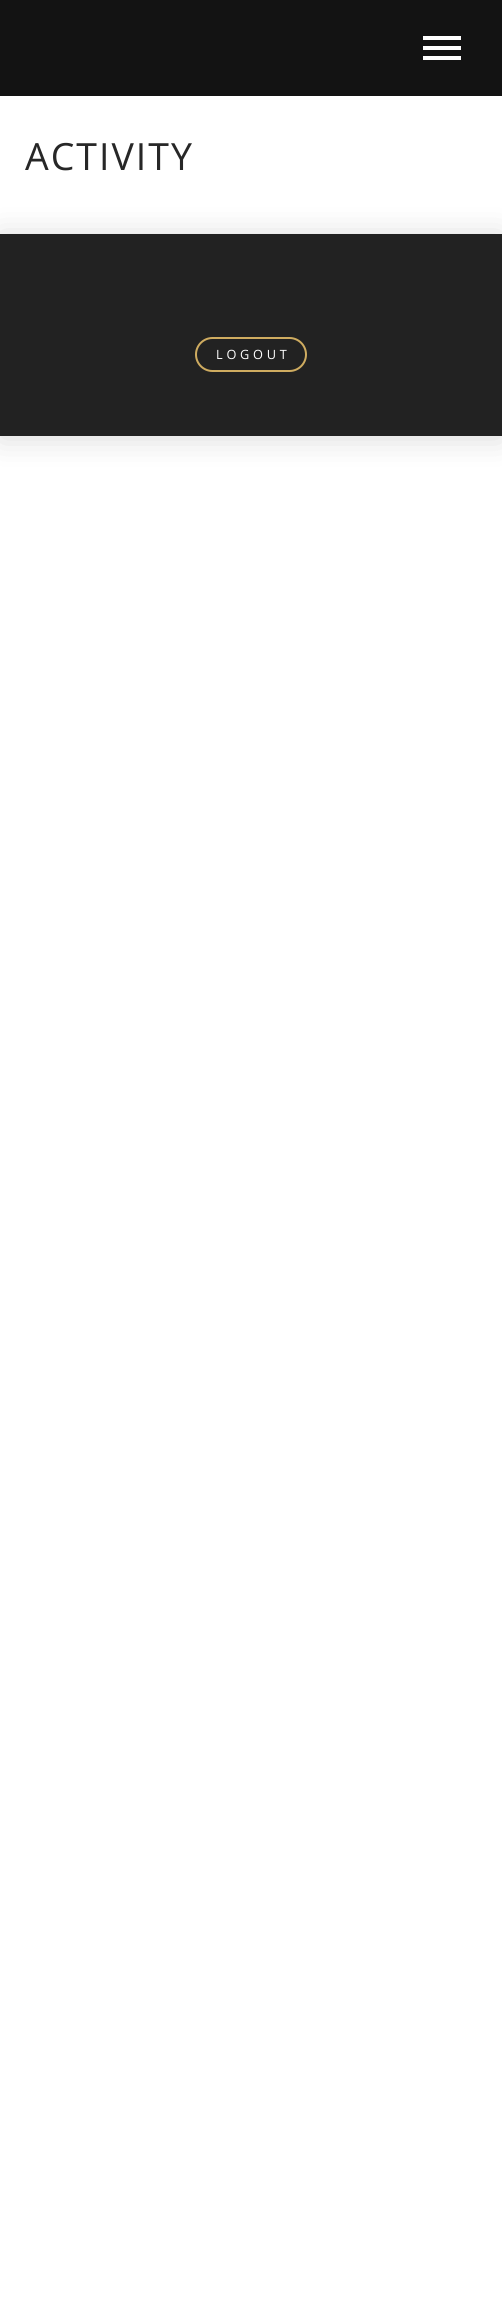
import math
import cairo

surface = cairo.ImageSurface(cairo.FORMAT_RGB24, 502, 2304)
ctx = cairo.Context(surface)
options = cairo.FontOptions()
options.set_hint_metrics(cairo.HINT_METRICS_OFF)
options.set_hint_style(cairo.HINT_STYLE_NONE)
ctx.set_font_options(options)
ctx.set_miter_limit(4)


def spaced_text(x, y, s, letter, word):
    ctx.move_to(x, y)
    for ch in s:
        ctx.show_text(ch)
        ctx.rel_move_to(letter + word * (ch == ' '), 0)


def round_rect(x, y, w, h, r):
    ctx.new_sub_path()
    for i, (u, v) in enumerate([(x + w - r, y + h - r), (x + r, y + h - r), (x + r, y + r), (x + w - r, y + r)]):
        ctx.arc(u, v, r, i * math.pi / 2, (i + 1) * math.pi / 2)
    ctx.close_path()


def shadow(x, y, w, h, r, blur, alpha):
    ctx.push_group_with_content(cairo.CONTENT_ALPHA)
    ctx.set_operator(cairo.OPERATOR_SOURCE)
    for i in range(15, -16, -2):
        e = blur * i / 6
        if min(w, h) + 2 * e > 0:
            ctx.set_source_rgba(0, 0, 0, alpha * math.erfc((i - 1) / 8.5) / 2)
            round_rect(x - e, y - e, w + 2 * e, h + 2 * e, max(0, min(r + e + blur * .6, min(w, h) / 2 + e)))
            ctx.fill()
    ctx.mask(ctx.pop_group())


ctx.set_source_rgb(1, 1, 1)
ctx.paint()
ctx.set_source_rgb(0.078, 0.078, 0.078)
ctx.rectangle(0, 0, 502, 96)
ctx.fill()
ctx.set_source_rgb(1, 1, 1)
ctx.rectangle(423, 36, 38, 4)
ctx.fill()
ctx.rectangle(423, 46, 38, 4)
ctx.fill()
ctx.rectangle(423, 56, 38, 4)
ctx.fill()
ctx.select_font_face("Open Sans")
ctx.set_font_size(37.5)
ctx.set_source_rgb(0.153, 0.153, 0.153)
spaced_text(25, 170, "ACTIVITY", 2, 0)
ctx.set_source_rgb(0, 0, 0)
shadow(0, 236, 502, 202, 0, 16, 0.15)
ctx.set_source_rgb(0.133, 0.133, 0.133)
ctx.rectangle(0, 234, 502, 202)
ctx.fill()
round_rect(196, 338, 110, 33, 16.5)
ctx.set_source_rgb(0.812, 0.675, 0.376)
ctx.stroke()
ctx.set_font_size(12.75)
ctx.set_source_rgb(1, 1, 1)
spaced_text(216, 359, "LOGOUT", 3.75, 0)
surface.write_to_png("page.png")
